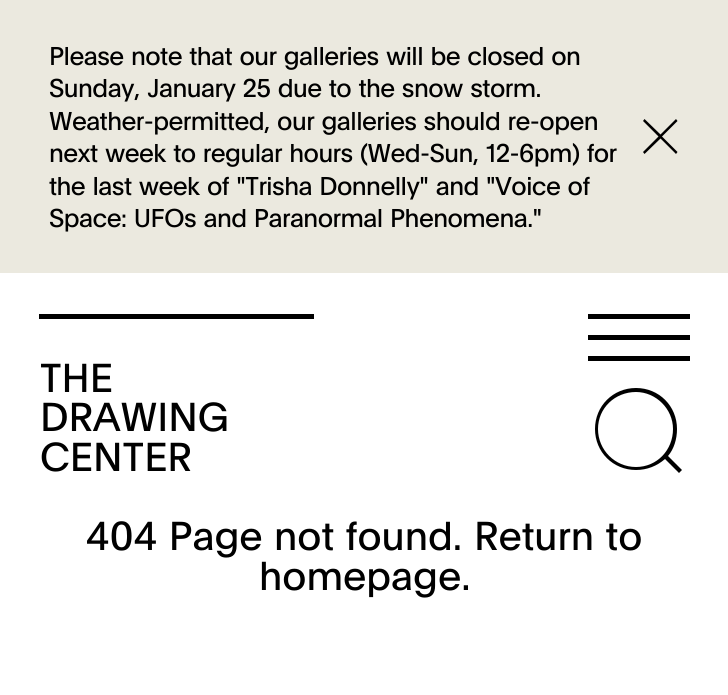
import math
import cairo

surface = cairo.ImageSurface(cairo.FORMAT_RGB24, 728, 695)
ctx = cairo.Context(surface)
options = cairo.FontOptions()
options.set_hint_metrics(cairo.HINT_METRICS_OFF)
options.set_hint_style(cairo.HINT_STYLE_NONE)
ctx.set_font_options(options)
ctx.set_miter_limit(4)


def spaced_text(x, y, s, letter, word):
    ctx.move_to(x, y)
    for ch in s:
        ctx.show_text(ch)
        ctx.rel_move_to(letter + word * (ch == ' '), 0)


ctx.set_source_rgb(1, 1, 1)
ctx.paint()
ctx.set_source_rgb(0.918, 0.914, 0.875)
ctx.rectangle(0, 0, 728, 273)
ctx.fill()
ctx.select_font_face("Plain")
ctx.set_font_size(25.2)
ctx.set_source_rgb(0, 0, 0)
spaced_text(49, 65, "Please note that our galleries will be closed on", -0.55, 1.5)
spaced_text(49, 97, "Sunday, January 25 due to the snow storm.", -0.55, 1.5)
spaced_text(49, 130, "Weather-permitted, our galleries should re-open", -0.55, 1.5)
spaced_text(49, 162, "next week to regular hours (Wed-Sun, 12-6pm) for", -0.55, 1.5)
spaced_text(49, 195, "the last week of \"Trisha Donnelly\" and \"Voice of", -0.55, 1.5)
spaced_text(49, 227, "Space: UFOs and Paranormal Phenomena.\"", -0.55, 1.5)
ctx.new_path()
ctx.move_to(677.5, 121)
ctx.line_to(676, 119)
ctx.line_to(660.5, 134.5)
ctx.line_to(644.5, 119)
ctx.line_to(643, 121)
ctx.line_to(658.5, 136.5)
ctx.line_to(643, 152)
ctx.line_to(644.5, 154)
ctx.line_to(660.5, 138.5)
ctx.line_to(676, 154)
ctx.line_to(677.5, 152)
ctx.line_to(662, 136.5)
ctx.close_path()
ctx.fill()
ctx.rectangle(39, 314, 275, 5)
ctx.fill()
ctx.set_font_size(39.5)
ctx.move_to(40, 392)
ctx.show_text("THE")
ctx.move_to(40, 431)
ctx.show_text("DRAWING")
ctx.move_to(40, 471)
ctx.show_text("CENTER")
ctx.rectangle(588, 314, 102, 5)
ctx.fill()
ctx.rectangle(588, 335, 102, 5)
ctx.fill()
ctx.rectangle(588, 356, 102, 5)
ctx.fill()
ctx.new_path()
ctx.move_to(682, 470)
ctx.line_to(668, 456)
ctx.curve_to(674, 449, 677, 439, 677, 429)
ctx.curve_to(677, 406, 659, 388, 636, 388)
ctx.curve_to(613, 388, 595, 406, 595, 429)
ctx.curve_to(595, 452, 613, 470, 636, 470)
ctx.curve_to(647, 470, 657, 466, 665, 459)
ctx.line_to(679, 473)
ctx.close_path()
ctx.move_to(636, 467)
ctx.curve_to(615, 467, 598, 450, 598, 429)
ctx.curve_to(598, 408, 615, 392, 636, 392)
ctx.curve_to(656, 392, 673, 409, 673, 429)
ctx.curve_to(673, 450, 657, 467, 636, 467)
ctx.close_path()
ctx.fill()
spaced_text(86, 550, "404 Page not found.", 0, 1.5)
spaced_text(474, 550, "Return to", 0, 1.5)
ctx.move_to(259, 590)
ctx.show_text("homepage.")
surface.write_to_png("page.png")
